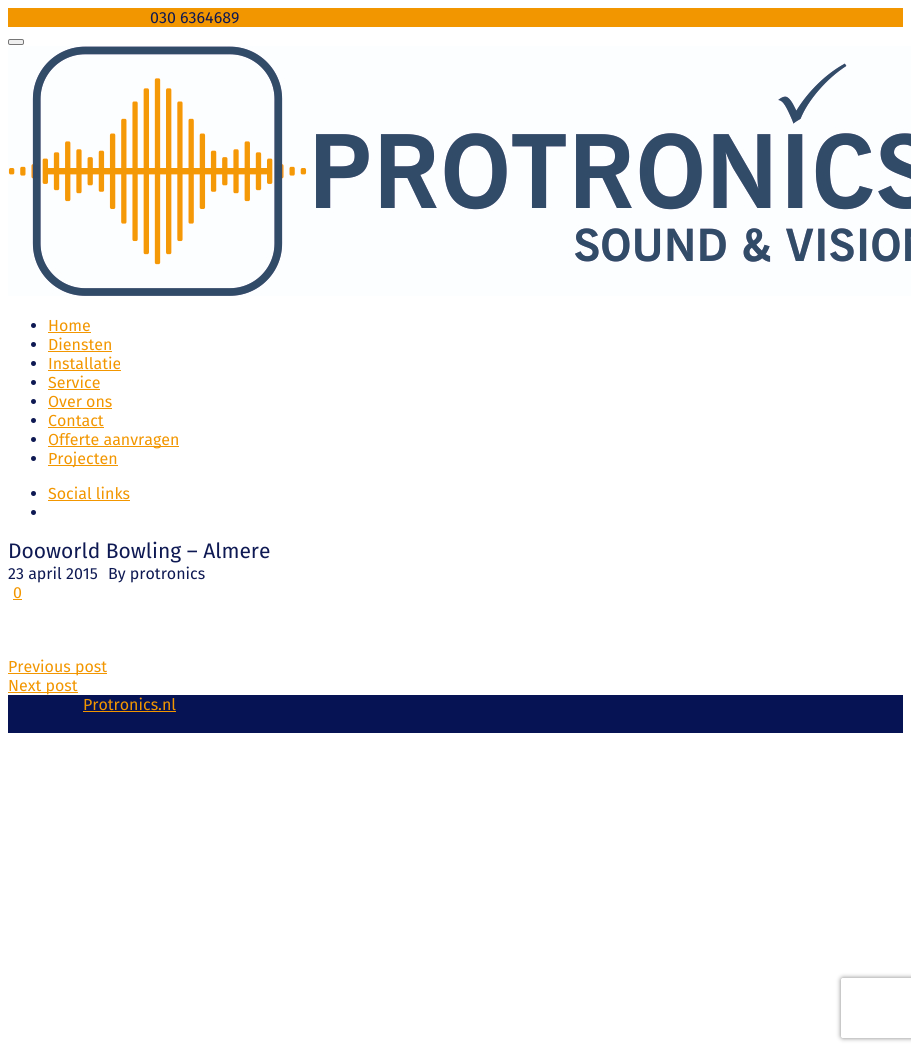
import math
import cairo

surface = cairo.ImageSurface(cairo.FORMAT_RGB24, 911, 1052)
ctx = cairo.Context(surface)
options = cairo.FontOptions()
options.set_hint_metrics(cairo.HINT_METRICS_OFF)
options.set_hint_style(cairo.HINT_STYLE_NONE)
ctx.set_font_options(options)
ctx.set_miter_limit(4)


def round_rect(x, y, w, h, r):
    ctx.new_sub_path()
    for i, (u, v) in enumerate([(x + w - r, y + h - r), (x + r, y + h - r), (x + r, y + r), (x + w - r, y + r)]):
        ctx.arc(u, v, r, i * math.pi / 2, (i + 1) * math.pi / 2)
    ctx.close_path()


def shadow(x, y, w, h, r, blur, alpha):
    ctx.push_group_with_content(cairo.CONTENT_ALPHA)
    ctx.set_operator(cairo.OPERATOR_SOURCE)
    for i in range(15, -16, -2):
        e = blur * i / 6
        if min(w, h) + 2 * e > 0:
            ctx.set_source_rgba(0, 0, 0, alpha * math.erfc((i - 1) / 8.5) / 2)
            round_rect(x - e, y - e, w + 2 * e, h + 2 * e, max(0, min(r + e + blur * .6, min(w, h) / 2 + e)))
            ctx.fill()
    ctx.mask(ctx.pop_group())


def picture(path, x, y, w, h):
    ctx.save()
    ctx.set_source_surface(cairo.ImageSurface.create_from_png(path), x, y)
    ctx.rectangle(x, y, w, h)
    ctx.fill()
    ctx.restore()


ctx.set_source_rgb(1, 1, 1)
ctx.paint()
ctx.set_source_rgb(0.949, 0.588, 0)
ctx.rectangle(8, 8, 895, 19)
ctx.fill()
ctx.select_font_face("Fira Sans")
ctx.set_font_size(16)
ctx.set_source_rgb(0.055, 0.098, 0.325)
ctx.move_to(150, 23)
ctx.show_text("030 6364689")
ctx.set_source_rgb(0.937, 0.937, 0.937)
round_rect(8.5, 39.5, 15, 5, 1.5)
ctx.fill_preserve()
ctx.set_source_rgb(0.463, 0.463, 0.463)
ctx.set_line_width(1)
ctx.stroke()
picture("img1.png", 8, 46, 903, 250)
ctx.set_source_rgb(0.055, 0.098, 0.325)
ctx.arc(33.5, 325.5, 2.5, 0, 2 * math.pi)
ctx.fill()
ctx.set_source_rgb(0.949, 0.588, 0)
ctx.move_to(48, 331)
ctx.show_text("Home")
ctx.rectangle(48, 332, 43, 1)
ctx.fill()
ctx.set_source_rgb(0.055, 0.098, 0.325)
ctx.arc(33.5, 344.5, 2.5, 0, 2 * math.pi)
ctx.fill()
ctx.set_source_rgb(0.949, 0.588, 0)
ctx.move_to(48, 350)
ctx.show_text("Diensten")
ctx.rectangle(48, 351, 64, 1)
ctx.fill()
ctx.set_source_rgb(0.055, 0.098, 0.325)
ctx.arc(33.5, 363.5, 2.5, 0, 2 * math.pi)
ctx.fill()
ctx.set_source_rgb(0.949, 0.588, 0)
ctx.move_to(48, 369)
ctx.show_text("Installatie")
ctx.rectangle(48, 370, 73, 1)
ctx.fill()
ctx.set_source_rgb(0.055, 0.098, 0.325)
ctx.arc(33.5, 382.5, 2.5, 0, 2 * math.pi)
ctx.fill()
ctx.set_source_rgb(0.949, 0.588, 0)
ctx.move_to(48, 388)
ctx.show_text("Service")
ctx.rectangle(48, 389, 52, 1)
ctx.fill()
ctx.set_source_rgb(0.055, 0.098, 0.325)
ctx.arc(33.5, 401.5, 2.5, 0, 2 * math.pi)
ctx.fill()
ctx.set_source_rgb(0.949, 0.588, 0)
ctx.move_to(48, 407)
ctx.show_text("Over ons")
ctx.rectangle(48, 408, 64, 1)
ctx.fill()
ctx.set_source_rgb(0.055, 0.098, 0.325)
ctx.arc(33.5, 420.5, 2.5, 0, 2 * math.pi)
ctx.fill()
ctx.set_source_rgb(0.949, 0.588, 0)
ctx.move_to(48, 426)
ctx.show_text("Contact")
ctx.rectangle(48, 427, 56, 1)
ctx.fill()
ctx.set_source_rgb(0.055, 0.098, 0.325)
ctx.arc(33.5, 439.5, 2.5, 0, 2 * math.pi)
ctx.fill()
ctx.set_source_rgb(0.949, 0.588, 0)
ctx.rectangle(48, 446, 131, 1)
ctx.fill()
ctx.move_to(48, 445)
ctx.show_text("Offerte aanvragen")
ctx.set_source_rgb(0.055, 0.098, 0.325)
ctx.new_path()
ctx.arc(33.5, 458.5, 2.5, 0, 2 * math.pi)
ctx.fill()
ctx.set_source_rgb(0.949, 0.588, 0)
ctx.rectangle(48, 465, 70, 1)
ctx.fill()
ctx.move_to(48, 464)
ctx.show_text("Projecten")
ctx.set_source_rgb(0.055, 0.098, 0.325)
ctx.new_path()
ctx.arc(33.5, 493.5, 2.5, 0, 2 * math.pi)
ctx.fill()
ctx.set_source_rgb(0.949, 0.588, 0)
ctx.move_to(48, 499)
ctx.show_text("Social links")
ctx.rectangle(48, 500, 82, 1)
ctx.fill()
ctx.set_source_rgb(0.055, 0.098, 0.325)
ctx.arc(33.5, 512.5, 2.5, 0, 2 * math.pi)
ctx.fill()
ctx.set_font_size(21)
ctx.move_to(8, 558)
ctx.show_text("Dooworld Bowling – Almere")
ctx.set_font_size(16)
ctx.move_to(8, 579)
ctx.show_text("23 april 2015")
ctx.move_to(108, 579)
ctx.show_text("By protronics")
ctx.set_source_rgb(0.949, 0.588, 0)
ctx.move_to(13, 598)
ctx.show_text("0")
ctx.rectangle(13, 599, 9, 1)
ctx.fill()
ctx.rectangle(8, 673, 99, 1)
ctx.fill()
ctx.move_to(8, 672)
ctx.show_text("Previous post")
ctx.rectangle(8, 692, 70, 1)
ctx.fill()
ctx.move_to(8, 691)
ctx.show_text("Next post")
ctx.set_source_rgb(0.027, 0.078, 0.329)
ctx.rectangle(8, 695, 895, 38)
ctx.fill()
ctx.set_source_rgb(0.949, 0.588, 0)
ctx.move_to(83, 710)
ctx.show_text("Protronics.nl")
ctx.rectangle(83, 711, 93, 1)
ctx.fill()
ctx.save()
ctx.set_fill_rule(cairo.FILL_RULE_EVEN_ODD)
ctx.new_path()
ctx.move_to(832, 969)
ctx.line_to(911, 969)
ctx.line_to(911, 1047)
ctx.line_to(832, 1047)
ctx.close_path()
ctx.move_to(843, 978)
ctx.line_to(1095, 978)
ctx.curve_to(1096, 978, 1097, 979, 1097, 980)
ctx.line_to(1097, 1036)
ctx.curve_to(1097, 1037, 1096, 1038, 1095, 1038)
ctx.line_to(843, 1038)
ctx.curve_to(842, 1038, 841, 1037, 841, 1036)
ctx.line_to(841, 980)
ctx.curve_to(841, 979, 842, 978, 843, 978)
ctx.close_path()
ctx.clip()
ctx.set_source_rgb(0.502, 0.502, 0.502)
shadow(841, 978, 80, 60, 2, 2.5, 1)
ctx.restore()
surface.write_to_png("page.png")
